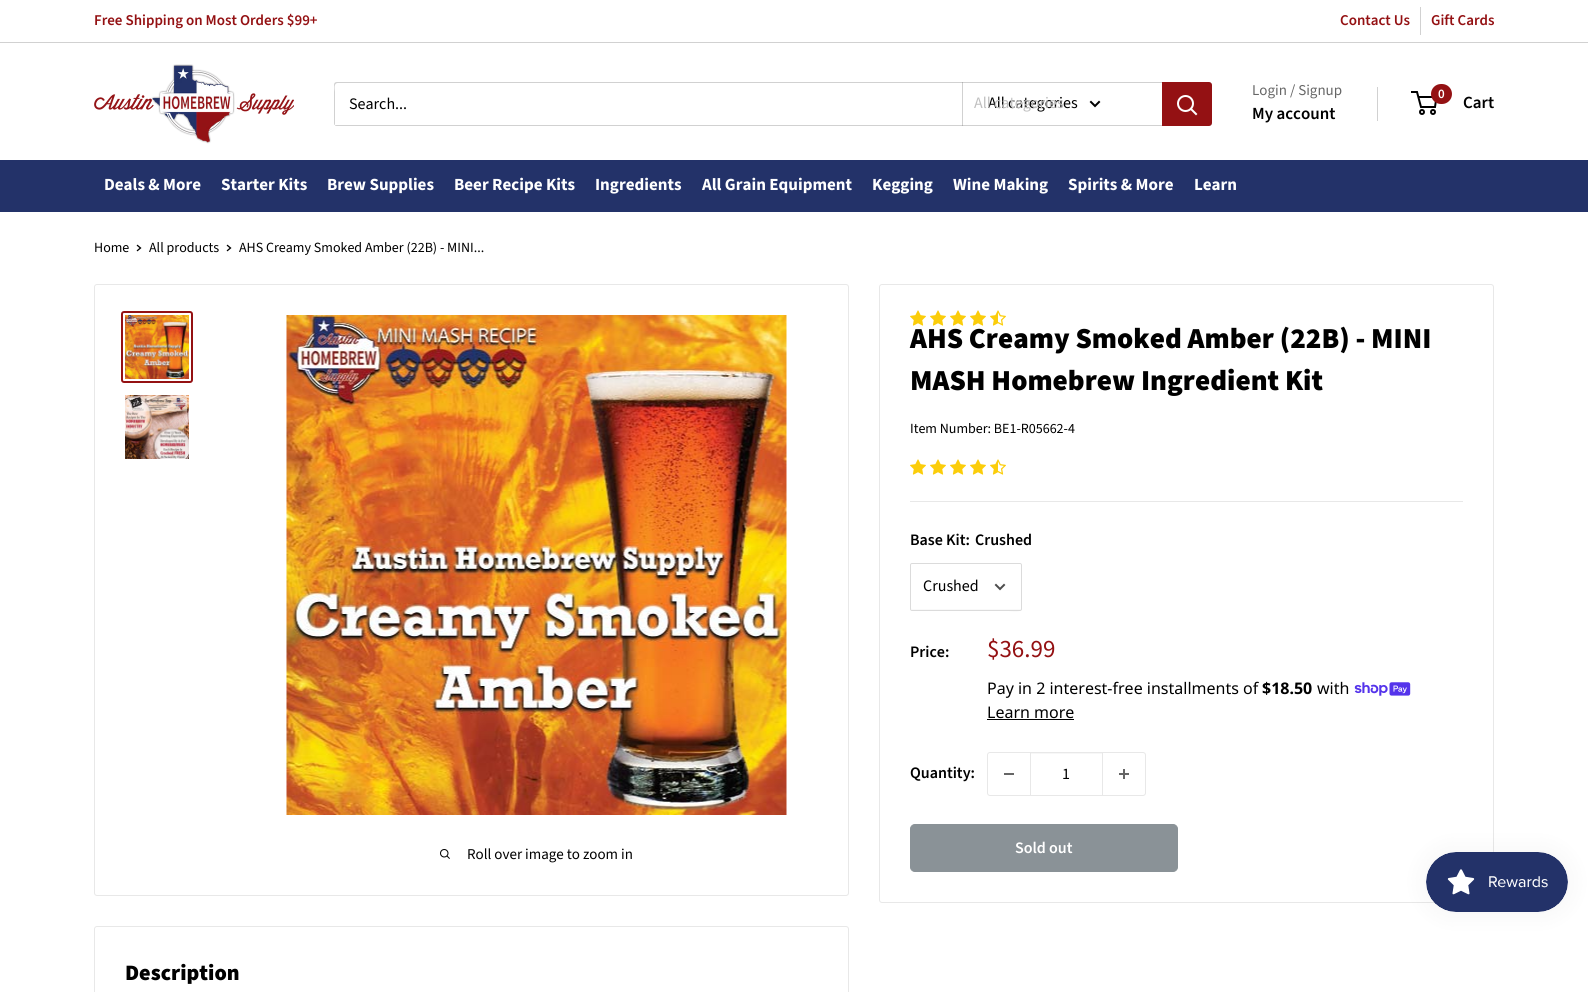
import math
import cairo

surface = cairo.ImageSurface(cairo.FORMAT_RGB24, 1588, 992)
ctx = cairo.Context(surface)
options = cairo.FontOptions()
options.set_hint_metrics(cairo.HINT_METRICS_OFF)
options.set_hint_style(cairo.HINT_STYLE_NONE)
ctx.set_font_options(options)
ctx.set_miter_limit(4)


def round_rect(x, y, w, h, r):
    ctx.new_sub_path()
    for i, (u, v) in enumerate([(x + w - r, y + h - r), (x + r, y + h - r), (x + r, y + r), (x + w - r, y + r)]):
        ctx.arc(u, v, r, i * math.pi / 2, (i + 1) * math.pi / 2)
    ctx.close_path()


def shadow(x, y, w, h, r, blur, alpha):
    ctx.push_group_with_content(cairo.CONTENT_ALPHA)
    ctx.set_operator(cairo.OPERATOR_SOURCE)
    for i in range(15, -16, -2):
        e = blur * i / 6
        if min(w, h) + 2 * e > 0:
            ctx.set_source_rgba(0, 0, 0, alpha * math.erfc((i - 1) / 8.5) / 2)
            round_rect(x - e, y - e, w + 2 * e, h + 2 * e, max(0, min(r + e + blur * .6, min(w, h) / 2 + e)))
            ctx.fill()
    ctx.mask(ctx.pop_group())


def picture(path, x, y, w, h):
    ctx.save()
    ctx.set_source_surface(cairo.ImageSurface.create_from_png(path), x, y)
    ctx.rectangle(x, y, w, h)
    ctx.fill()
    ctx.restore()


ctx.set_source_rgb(1, 1, 1)
ctx.paint()
ctx.set_source_rgb(0.82, 0.82, 0.82)
ctx.rectangle(0, 42, 1588, 1)
ctx.fill()
ctx.select_font_face("Source Sans Pro SemiBold")
ctx.set_font_size(15)
ctx.set_source_rgb(0.58, 0.067, 0.078)
ctx.move_to(94, 25)
ctx.show_text("Free Shipping on Most Orders $99+")
ctx.move_to(1340, 25)
ctx.show_text("Contact Us")
ctx.set_source_rgb(0.82, 0.82, 0.82)
ctx.rectangle(1420, 7, 1, 28)
ctx.fill()
ctx.set_source_rgb(0.58, 0.067, 0.078)
ctx.move_to(1431, 25)
ctx.show_text("Gift Cards")
picture("img1.png", 94, 64, 200, 80)
ctx.set_source_rgb(0.82, 0.82, 0.82)
ctx.new_path()
ctx.move_to(335, 125)
ctx.curve_to(335, 126, 336, 126, 337, 126)
ctx.line_to(1209, 126)
ctx.curve_to(1211, 126, 1212, 125, 1212, 123)
ctx.line_to(1212, 85)
ctx.curve_to(1212, 84, 1212, 83, 1211, 83)
ctx.line_to(1211, 116)
ctx.curve_to(1211, 118, 1213, 125, 1208, 125)
ctx.close_path()
ctx.fill()
ctx.new_path()
ctx.move_to(338, 83)
ctx.line_to(1211, 83)
ctx.curve_to(1211, 82, 1210, 82, 1209, 82)
ctx.line_to(337, 82)
ctx.curve_to(335, 82, 334, 83, 334, 85)
ctx.line_to(334, 123)
ctx.curve_to(334, 124, 334, 125, 335, 125)
ctx.line_to(335, 92)
ctx.curve_to(335, 90, 333, 83, 338, 83)
ctx.close_path()
ctx.fill()
ctx.select_font_face("Source Sans Pro")
ctx.set_font_size(16)
ctx.set_source_rgb(0, 0, 0)
ctx.move_to(349, 109)
ctx.show_text("Search...")
ctx.set_source_rgba(0.4, 0.4, 0.4, 0.3)
ctx.rectangle(962, 82, 1, 44)
ctx.fill()
ctx.set_source_rgb(0, 0, 0)
ctx.move_to(988, 108)
ctx.show_text("All categories")
ctx.set_source_rgb(0.749, 0.749, 0.749)
ctx.move_to(974, 108)
ctx.show_text("All categories")
ctx.new_path()
ctx.move_to(1099, 102)
ctx.line_to(1095, 106)
ctx.line_to(1091, 102)
ctx.set_source_rgb(0, 0, 0)
ctx.set_line_cap(cairo.LINE_CAP_SQUARE)
ctx.stroke()
ctx.set_source_rgb(0.58, 0.067, 0.078)
ctx.new_path()
ctx.move_to(1162, 82)
ctx.line_to(1209, 82)
ctx.curve_to(1210.5, 82, 1212, 83.5, 1212, 85)
ctx.line_to(1212, 123)
ctx.curve_to(1212, 124.5, 1210.5, 126, 1209, 126)
ctx.line_to(1162, 126)
ctx.close_path()
ctx.fill()
ctx.new_path()
ctx.move_to(1196, 114)
ctx.line_to(1191, 109)
ctx.set_source_rgb(1, 1, 1)
ctx.stroke()
ctx.arc(1185.5, 103.5, 7.5, 0, 2 * math.pi)
ctx.set_line_cap(cairo.LINE_CAP_BUTT)
ctx.stroke()
ctx.set_font_size(15)
ctx.set_source_rgb(0.4, 0.4, 0.4)
ctx.move_to(1252, 95)
ctx.show_text("Login / Signup")
ctx.set_source_rgb(0.82, 0.82, 0.82)
ctx.rectangle(1377, 87, 1, 34)
ctx.fill()
ctx.select_font_face("Source Sans Pro SemiBold")
ctx.set_font_size(17)
ctx.set_source_rgb(0, 0, 0)
ctx.move_to(1252, 119)
ctx.show_text("My account")
ctx.new_path()
ctx.arc(1422, 112, 2, 0, 2 * math.pi)
ctx.stroke()
ctx.arc(1433, 112, 2, 0, 2 * math.pi)
ctx.stroke()
ctx.new_path()
ctx.move_to(1418.5, 97)
ctx.line_to(1436.5, 97)
ctx.line_to(1435, 107)
ctx.line_to(1421, 107)
ctx.line_to(1417, 92)
ctx.line_to(1411, 92)
ctx.stroke()
ctx.set_source_rgb(0.58, 0.067, 0.078)
round_rect(1431, 84, 21, 20, 10)
ctx.fill()
ctx.set_font_size(13)
ctx.set_source_rgb(1, 1, 1)
ctx.move_to(1438, 98)
ctx.show_text("0")
ctx.set_font_size(17)
ctx.set_source_rgb(0, 0, 0)
ctx.move_to(1463, 108)
ctx.show_text("Cart")
ctx.set_source_rgb(0.137, 0.196, 0.412)
ctx.rectangle(0, 160, 1588, 52)
ctx.fill()
ctx.select_font_face("Source Sans Pro", cairo.FONT_SLANT_NORMAL, cairo.FONT_WEIGHT_BOLD)
ctx.set_source_rgb(1, 1, 1)
ctx.move_to(104, 190)
ctx.show_text("Deals & More")
ctx.move_to(221, 190)
ctx.show_text("Starter Kits")
ctx.move_to(327, 190)
ctx.show_text("Brew Supplies")
ctx.move_to(454, 190)
ctx.show_text("Beer Recipe Kits")
ctx.move_to(595, 190)
ctx.show_text("Ingredients")
ctx.move_to(702, 190)
ctx.show_text("All Grain Equipment")
ctx.move_to(872, 190)
ctx.show_text("Kegging")
ctx.move_to(953, 190)
ctx.show_text("Wine Making")
ctx.move_to(1068, 190)
ctx.show_text("Spirits & More")
ctx.move_to(1194, 190)
ctx.show_text("Learn")
ctx.select_font_face("Source Sans Pro")
ctx.set_font_size(14)
ctx.set_source_rgb(0, 0, 0)
ctx.move_to(94, 252)
ctx.show_text("Home")
ctx.new_path()
ctx.move_to(137.5, 245.5)
ctx.line_to(140.5, 248)
ctx.line_to(137.5, 250.5)
ctx.set_line_width(1.3)
ctx.set_line_cap(cairo.LINE_CAP_SQUARE)
ctx.stroke()
ctx.move_to(149, 252)
ctx.show_text("All products")
ctx.new_path()
ctx.move_to(227.5, 245.5)
ctx.line_to(230.5, 248)
ctx.line_to(227.5, 250.5)
ctx.stroke()
ctx.move_to(239, 252)
ctx.show_text("AHS Creamy Smoked Amber (22B) - MINI...")
round_rect(879.5, 284.5, 614, 618, 2.5)
ctx.set_source_rgb(0.91, 0.91, 0.91)
ctx.set_line_width(1)
ctx.set_line_cap(cairo.LINE_CAP_BUTT)
ctx.stroke()
picture("img2.png", 910, 310, 16, 16)
picture("img2.png", 930, 310, 16, 16)
picture("img2.png", 950, 310, 16, 16)
picture("img2.png", 970, 310, 16, 16)
picture("img3.png", 990, 310, 16, 16)
ctx.select_font_face("Source Sans Pro Black")
ctx.set_font_size(29)
ctx.set_source_rgb(0, 0, 0)
ctx.move_to(910, 348)
ctx.show_text("AHS Creamy Smoked Amber (22B) - MINI")
ctx.move_to(910, 390)
ctx.show_text("MASH Homebrew Ingredient Kit")
ctx.select_font_face("Source Sans Pro")
ctx.set_font_size(14)
ctx.move_to(910, 433)
ctx.show_text("Item Number: BE1-R05662-4")
picture("img2.png", 910, 459, 16, 16)
picture("img2.png", 930, 459, 16, 16)
picture("img2.png", 950, 459, 16, 16)
picture("img2.png", 970, 459, 16, 16)
picture("img3.png", 990, 459, 16, 16)
ctx.set_source_rgb(0.91, 0.91, 0.91)
ctx.rectangle(910, 501, 553, 1)
ctx.fill()
ctx.select_font_face("Source Sans Pro SemiBold")
ctx.set_font_size(16)
ctx.set_source_rgb(0, 0, 0)
ctx.move_to(910, 545)
ctx.show_text("Base Kit:")
ctx.move_to(975, 545)
ctx.show_text("Crushed")
ctx.set_source_rgb(0.973, 0.973, 0.973)
ctx.new_path()
ctx.move_to(911, 608)
ctx.line_to(912, 610)
ctx.line_to(1002, 610)
ctx.curve_to(1006, 610, 1021, 615, 1021, 608)
ctx.curve_to(1021, 609, 1021, 609, 1020, 609)
ctx.line_to(911, 609)
ctx.close_path()
ctx.fill()
round_rect(910.5, 563.5, 111, 47, 1.5)
ctx.set_source_rgb(0.859, 0.859, 0.859)
ctx.stroke()
ctx.select_font_face("Source Sans Pro")
ctx.set_source_rgb(0, 0, 0)
ctx.move_to(923, 591)
ctx.show_text("Crushed")
ctx.new_path()
ctx.move_to(1004, 585)
ctx.line_to(1000, 589)
ctx.line_to(996, 585)
ctx.set_source_rgb(0.302, 0.302, 0.302)
ctx.set_line_width(2)
ctx.set_line_cap(cairo.LINE_CAP_SQUARE)
ctx.stroke()
ctx.select_font_face("Source Sans Pro SemiBold")
ctx.set_source_rgb(0, 0, 0)
ctx.move_to(910, 657)
ctx.show_text("Price:")
ctx.select_font_face("Source Sans Pro")
ctx.set_font_size(25)
ctx.set_source_rgb(0.58, 0.067, 0.078)
ctx.move_to(987, 657)
ctx.show_text("$36.99")
ctx.select_font_face("Noto Sans")
ctx.set_font_size(16)
ctx.set_source_rgb(0, 0, 0)
ctx.move_to(987, 694)
ctx.show_text("Pay in 2 interest-free installments of")
ctx.select_font_face("Noto Sans", cairo.FONT_SLANT_NORMAL, cairo.FONT_WEIGHT_BOLD)
ctx.move_to(1262, 694)
ctx.show_text("$18.50")
ctx.select_font_face("Noto Sans")
ctx.move_to(1317, 694)
ctx.show_text("with")
picture("img4.png", 1354, 682, 57, 14)
ctx.move_to(987, 718)
ctx.show_text("Learn more")
ctx.rectangle(987, 719, 87, 1)
ctx.fill()
ctx.select_font_face("Source Sans Pro SemiBold")
ctx.move_to(910, 778)
ctx.show_text("Quantity:")
round_rect(987.5, 752.5, 158, 43, 2.5)
ctx.set_source_rgb(0.91, 0.91, 0.91)
ctx.set_line_width(1)
ctx.set_line_cap(cairo.LINE_CAP_BUTT)
ctx.stroke()
ctx.set_source_rgb(0.4, 0.4, 0.4)
ctx.rectangle(1004, 773, 10, 2)
ctx.fill()
ctx.set_source_rgb(0.965, 0.965, 0.965)
ctx.rectangle(1031, 753, 71, 1)
ctx.fill()
ctx.set_source_rgb(0.91, 0.91, 0.91)
ctx.rectangle(1102, 753, 1, 42)
ctx.fill()
ctx.rectangle(1030, 753, 1, 42)
ctx.fill()
ctx.select_font_face("Source Sans Pro")
ctx.set_source_rgb(0, 0, 0)
ctx.move_to(1062, 779)
ctx.show_text("1")
picture("img5.png", 1119, 769, 10, 10)
ctx.set_source_rgb(0.541, 0.573, 0.592)
round_rect(910.5, 824.5, 267, 47, 4.5)
ctx.fill_preserve()
ctx.stroke()
ctx.select_font_face("Source Sans Pro SemiBold")
ctx.set_source_rgb(1, 1, 1)
ctx.move_to(1015, 853)
ctx.show_text("Sold out")
round_rect(94.5, 284.5, 754, 611, 2.5)
ctx.set_source_rgb(0.91, 0.91, 0.91)
ctx.stroke()
round_rect(122, 312, 70, 70, 2)
ctx.set_source_rgb(0.58, 0.067, 0.078)
ctx.set_line_width(2)
ctx.stroke()
picture("img6.png", 125, 315, 64, 64)
picture("img7.png", 125, 395, 64, 64)
picture("img8.png", 286, 315, 501, 500)
picture("img9.png", 440, 849, 10, 10)
ctx.select_font_face("Source Sans Pro")
ctx.set_font_size(15)
ctx.set_source_rgb(0, 0, 0)
ctx.move_to(467, 859)
ctx.show_text("Roll over image to zoom in")
round_rect(94.5, 926.5, 754, 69, 2.5)
ctx.set_source_rgb(0.91, 0.91, 0.91)
ctx.set_line_width(1)
ctx.stroke()
ctx.select_font_face("Source Sans Pro Black")
ctx.set_font_size(22)
ctx.set_source_rgb(0, 0, 0)
ctx.move_to(125, 980)
ctx.show_text("Description")
ctx.set_source_rgb(0, 0, 0)
shadow(1426, 852, 142, 60, 30, 12.5, 0.05)
picture("img10.png", 1426, 852, 142, 60)
surface.write_to_png("page.png")
